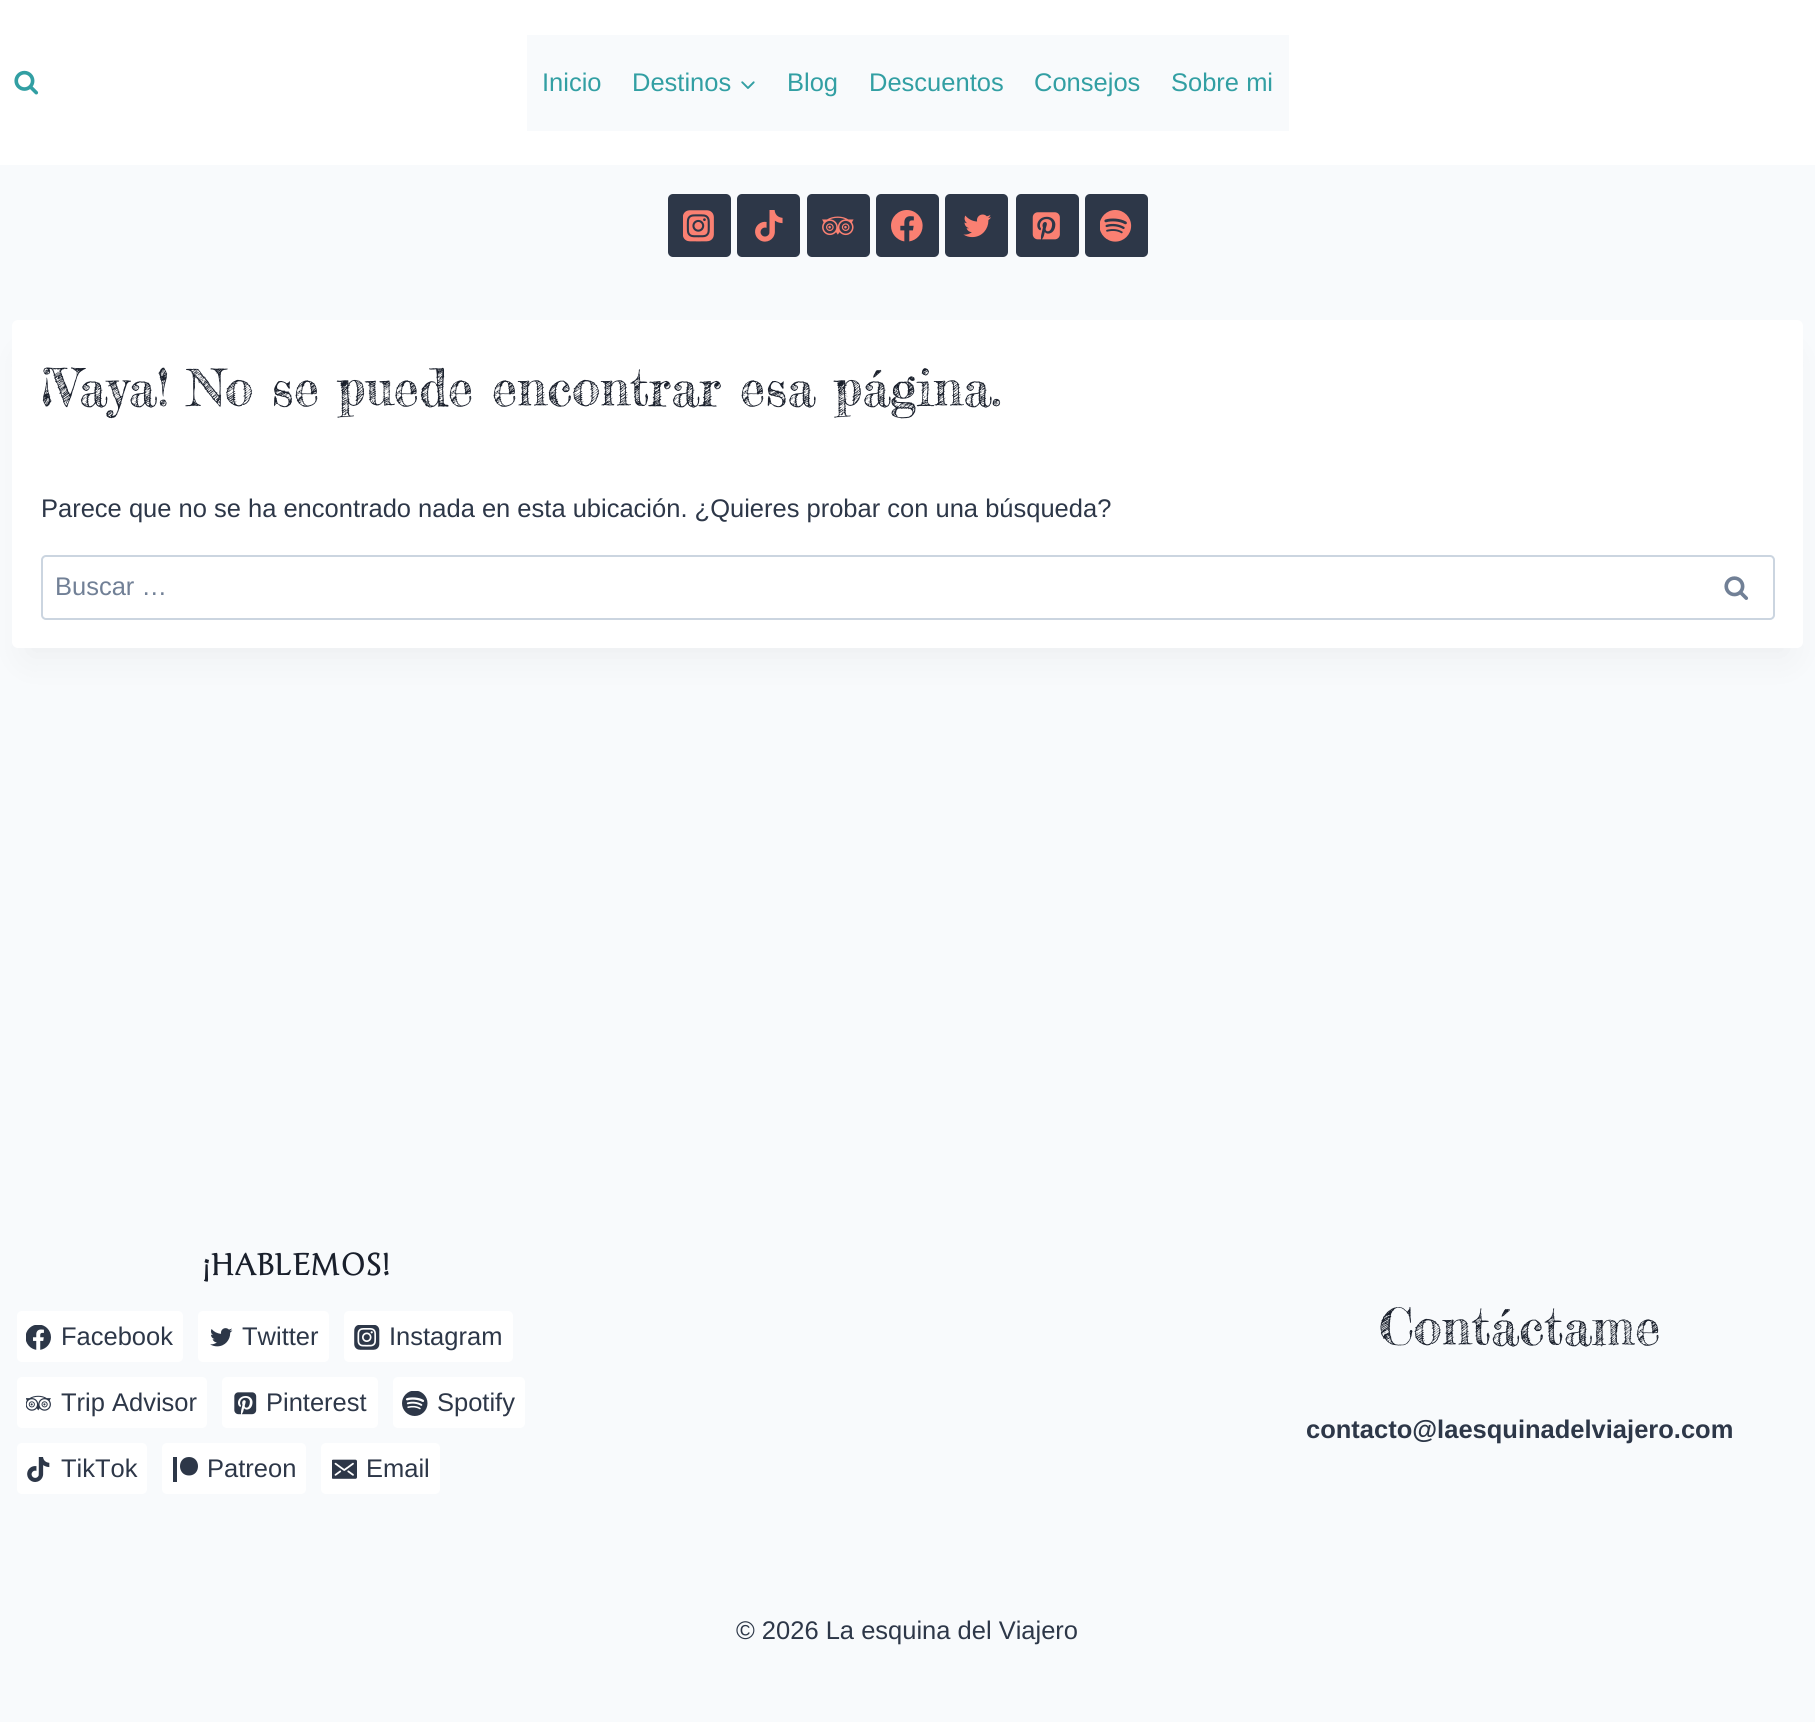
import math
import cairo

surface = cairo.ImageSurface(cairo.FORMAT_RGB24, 1815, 1722)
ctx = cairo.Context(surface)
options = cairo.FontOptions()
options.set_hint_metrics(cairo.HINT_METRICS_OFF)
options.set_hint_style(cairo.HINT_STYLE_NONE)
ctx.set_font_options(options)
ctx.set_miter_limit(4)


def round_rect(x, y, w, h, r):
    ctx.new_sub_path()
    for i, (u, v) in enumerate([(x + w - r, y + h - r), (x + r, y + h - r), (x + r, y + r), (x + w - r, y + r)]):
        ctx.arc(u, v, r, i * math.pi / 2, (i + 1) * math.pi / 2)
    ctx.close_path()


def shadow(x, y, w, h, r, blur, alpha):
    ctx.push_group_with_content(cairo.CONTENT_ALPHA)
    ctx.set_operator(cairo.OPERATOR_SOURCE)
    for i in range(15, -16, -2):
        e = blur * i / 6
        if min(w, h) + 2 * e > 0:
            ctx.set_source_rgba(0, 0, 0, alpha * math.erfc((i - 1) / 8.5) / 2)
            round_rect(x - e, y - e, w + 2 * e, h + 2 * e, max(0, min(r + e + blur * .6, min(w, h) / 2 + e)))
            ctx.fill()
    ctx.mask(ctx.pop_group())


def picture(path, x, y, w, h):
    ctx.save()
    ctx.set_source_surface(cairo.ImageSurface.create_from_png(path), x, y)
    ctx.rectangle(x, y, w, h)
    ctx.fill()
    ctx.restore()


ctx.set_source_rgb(0.969, 0.98, 0.988)
ctx.paint()
ctx.set_source_rgb(1, 1, 1)
ctx.rectangle(0, 0, 1815, 165)
ctx.fill()
picture("img1.png", 14, 70, 25, 25)
ctx.set_source_rgb(0.969, 0.98, 0.988)
ctx.rectangle(527, 35, 90, 96)
ctx.fill()
ctx.select_font_face("Liberation Sans")
ctx.set_font_size(25.5)
ctx.set_source_rgb(0.196, 0.624, 0.639)
ctx.move_to(542, 91)
ctx.show_text("Inicio")
ctx.set_source_rgb(0.969, 0.98, 0.988)
ctx.rectangle(617, 35, 672, 96)
ctx.fill()
ctx.set_source_rgb(0.196, 0.624, 0.639)
ctx.move_to(632, 91)
ctx.show_text("Destinos")
picture("img2.png", 741, 81, 14, 8)
ctx.move_to(787, 91)
ctx.show_text("Blog")
ctx.move_to(869, 91)
ctx.show_text("Descuentos")
ctx.move_to(1034, 91)
ctx.show_text("Consejos")
ctx.move_to(1171, 91)
ctx.show_text("Sobre mi")
ctx.set_source_rgb(0.176, 0.216, 0.282)
round_rect(668, 194, 63, 63, 5)
ctx.fill()
picture("img3.png", 683, 210, 31, 32)
round_rect(737, 194, 63, 63, 5)
ctx.fill()
picture("img4.png", 755, 210, 28, 32)
round_rect(807, 194, 63, 63, 5)
ctx.fill()
picture("img5.png", 822, 216, 32, 20)
round_rect(876, 194, 63, 63, 5)
ctx.fill()
picture("img6.png", 891, 210, 32, 32)
round_rect(945, 194, 63, 63, 5)
ctx.fill()
picture("img7.png", 963, 214, 28, 24)
round_rect(1016, 194, 63, 63, 5)
ctx.fill()
picture("img8.png", 1032, 212, 28, 28)
round_rect(1085, 194, 63, 63, 5)
ctx.fill()
picture("img9.png", 1100, 210, 32, 32)
ctx.set_source_rgb(0, 0, 0)
shadow(27, 357, 1761, 299, 0, 19, 0.05)
ctx.set_source_rgb(1, 1, 1)
round_rect(12, 320, 1791, 328, 6)
ctx.fill()
ctx.select_font_face("Fredericka the Great")
ctx.set_font_size(51)
ctx.set_source_rgb(0.102, 0.125, 0.173)
ctx.move_to(41, 406)
ctx.show_text("¡Vaya! No se puede encontrar esa página.")
ctx.select_font_face("Liberation Sans")
ctx.set_font_size(25.5)
ctx.set_source_rgb(0.176, 0.216, 0.282)
ctx.move_to(41, 517)
ctx.show_text("Parece que no se ha encontrado nada en esta ubicación. ¿Quieres probar con una búsqueda?")
round_rect(42, 556, 1732, 63, 4)
ctx.set_source_rgb(0.796, 0.835, 0.878)
ctx.stroke()
ctx.set_source_rgb(0.443, 0.502, 0.588)
ctx.move_to(55, 595)
ctx.show_text("Buscar …")
picture("img10.png", 1724, 576, 25, 24)
ctx.select_font_face("Junge", cairo.FONT_SLANT_NORMAL, cairo.FONT_WEIGHT_BOLD)
ctx.set_font_size(30)
ctx.set_source_rgb(0.102, 0.125, 0.173)
ctx.move_to(201, 1275)
ctx.show_text("¡HABLEMOS!")
ctx.set_source_rgb(1, 1, 1)
round_rect(17, 1311, 166, 51, 5)
ctx.fill()
picture("img11.png", 26, 1325, 25, 25)
ctx.select_font_face("Liberation Sans")
ctx.set_font_size(25.5)
ctx.set_source_rgb(0.176, 0.216, 0.282)
ctx.move_to(61, 1345)
ctx.show_text("Facebook")
ctx.set_source_rgb(1, 1, 1)
round_rect(198, 1311, 131, 51, 5)
ctx.fill()
picture("img12.png", 210, 1328, 23, 19)
ctx.set_source_rgb(0.176, 0.216, 0.282)
ctx.move_to(242, 1345)
ctx.show_text("Twitter")
ctx.set_source_rgb(1, 1, 1)
round_rect(344, 1311, 169, 51, 5)
ctx.fill()
picture("img13.png", 354, 1325, 26, 25)
ctx.set_source_rgb(0.176, 0.216, 0.282)
ctx.move_to(389, 1345)
ctx.show_text("Instagram")
ctx.set_source_rgb(1, 1, 1)
round_rect(17, 1377, 190, 51, 5)
ctx.fill()
picture("img14.png", 26, 1395, 25, 16)
ctx.set_source_rgb(0.176, 0.216, 0.282)
ctx.move_to(61, 1411)
ctx.show_text("Trip Advisor")
ctx.set_source_rgb(1, 1, 1)
round_rect(222, 1377, 156, 51, 5)
ctx.fill()
picture("img15.png", 234, 1392, 23, 23)
ctx.set_source_rgb(0.176, 0.216, 0.282)
ctx.move_to(266, 1411)
ctx.show_text("Pinterest")
ctx.set_source_rgb(1, 1, 1)
round_rect(393, 1377, 132, 51, 5)
ctx.fill()
picture("img16.png", 402, 1391, 26, 25)
ctx.set_source_rgb(0.176, 0.216, 0.282)
ctx.move_to(437, 1411)
ctx.show_text("Spotify")
ctx.set_source_rgb(1, 1, 1)
round_rect(17, 1443, 130, 51, 5)
ctx.fill()
picture("img17.png", 27, 1457, 23, 25)
ctx.set_source_rgb(0.176, 0.216, 0.282)
ctx.move_to(61, 1477)
ctx.show_text("TikTok")
ctx.set_source_rgb(1, 1, 1)
round_rect(162, 1443, 144, 51, 5)
ctx.fill()
ctx.set_source_rgb(0.176, 0.216, 0.282)
ctx.new_path()
ctx.move_to(189, 1457)
ctx.curve_to(177, 1457, 177, 1475.5, 189, 1475.5)
ctx.curve_to(201, 1475.5, 201, 1457, 189, 1457)
ctx.close_path()
ctx.fill()
ctx.rectangle(173, 1457, 4, 25)
ctx.fill()
ctx.move_to(207, 1477)
ctx.show_text("Patreon")
ctx.set_source_rgb(1, 1, 1)
round_rect(321, 1443, 119, 51, 5)
ctx.fill()
picture("img18.png", 332, 1459, 25, 20)
ctx.set_source_rgb(0.176, 0.216, 0.282)
ctx.move_to(366, 1477)
ctx.show_text("Email")
ctx.select_font_face("Fredericka the Great")
ctx.set_font_size(51)
ctx.set_source_rgb(0.102, 0.125, 0.173)
ctx.move_to(1379, 1345)
ctx.show_text("Contáctame")
ctx.select_font_face("Liberation Sans", cairo.FONT_SLANT_NORMAL, cairo.FONT_WEIGHT_BOLD)
ctx.set_font_size(25.5)
ctx.set_source_rgb(0.176, 0.216, 0.282)
ctx.move_to(1306, 1438)
ctx.show_text("contacto@laesquinadelviajero.com")
ctx.select_font_face("Liberation Sans")
ctx.move_to(736, 1639)
ctx.show_text("© 2026 La esquina del Viajero")
surface.write_to_png("page.png")
